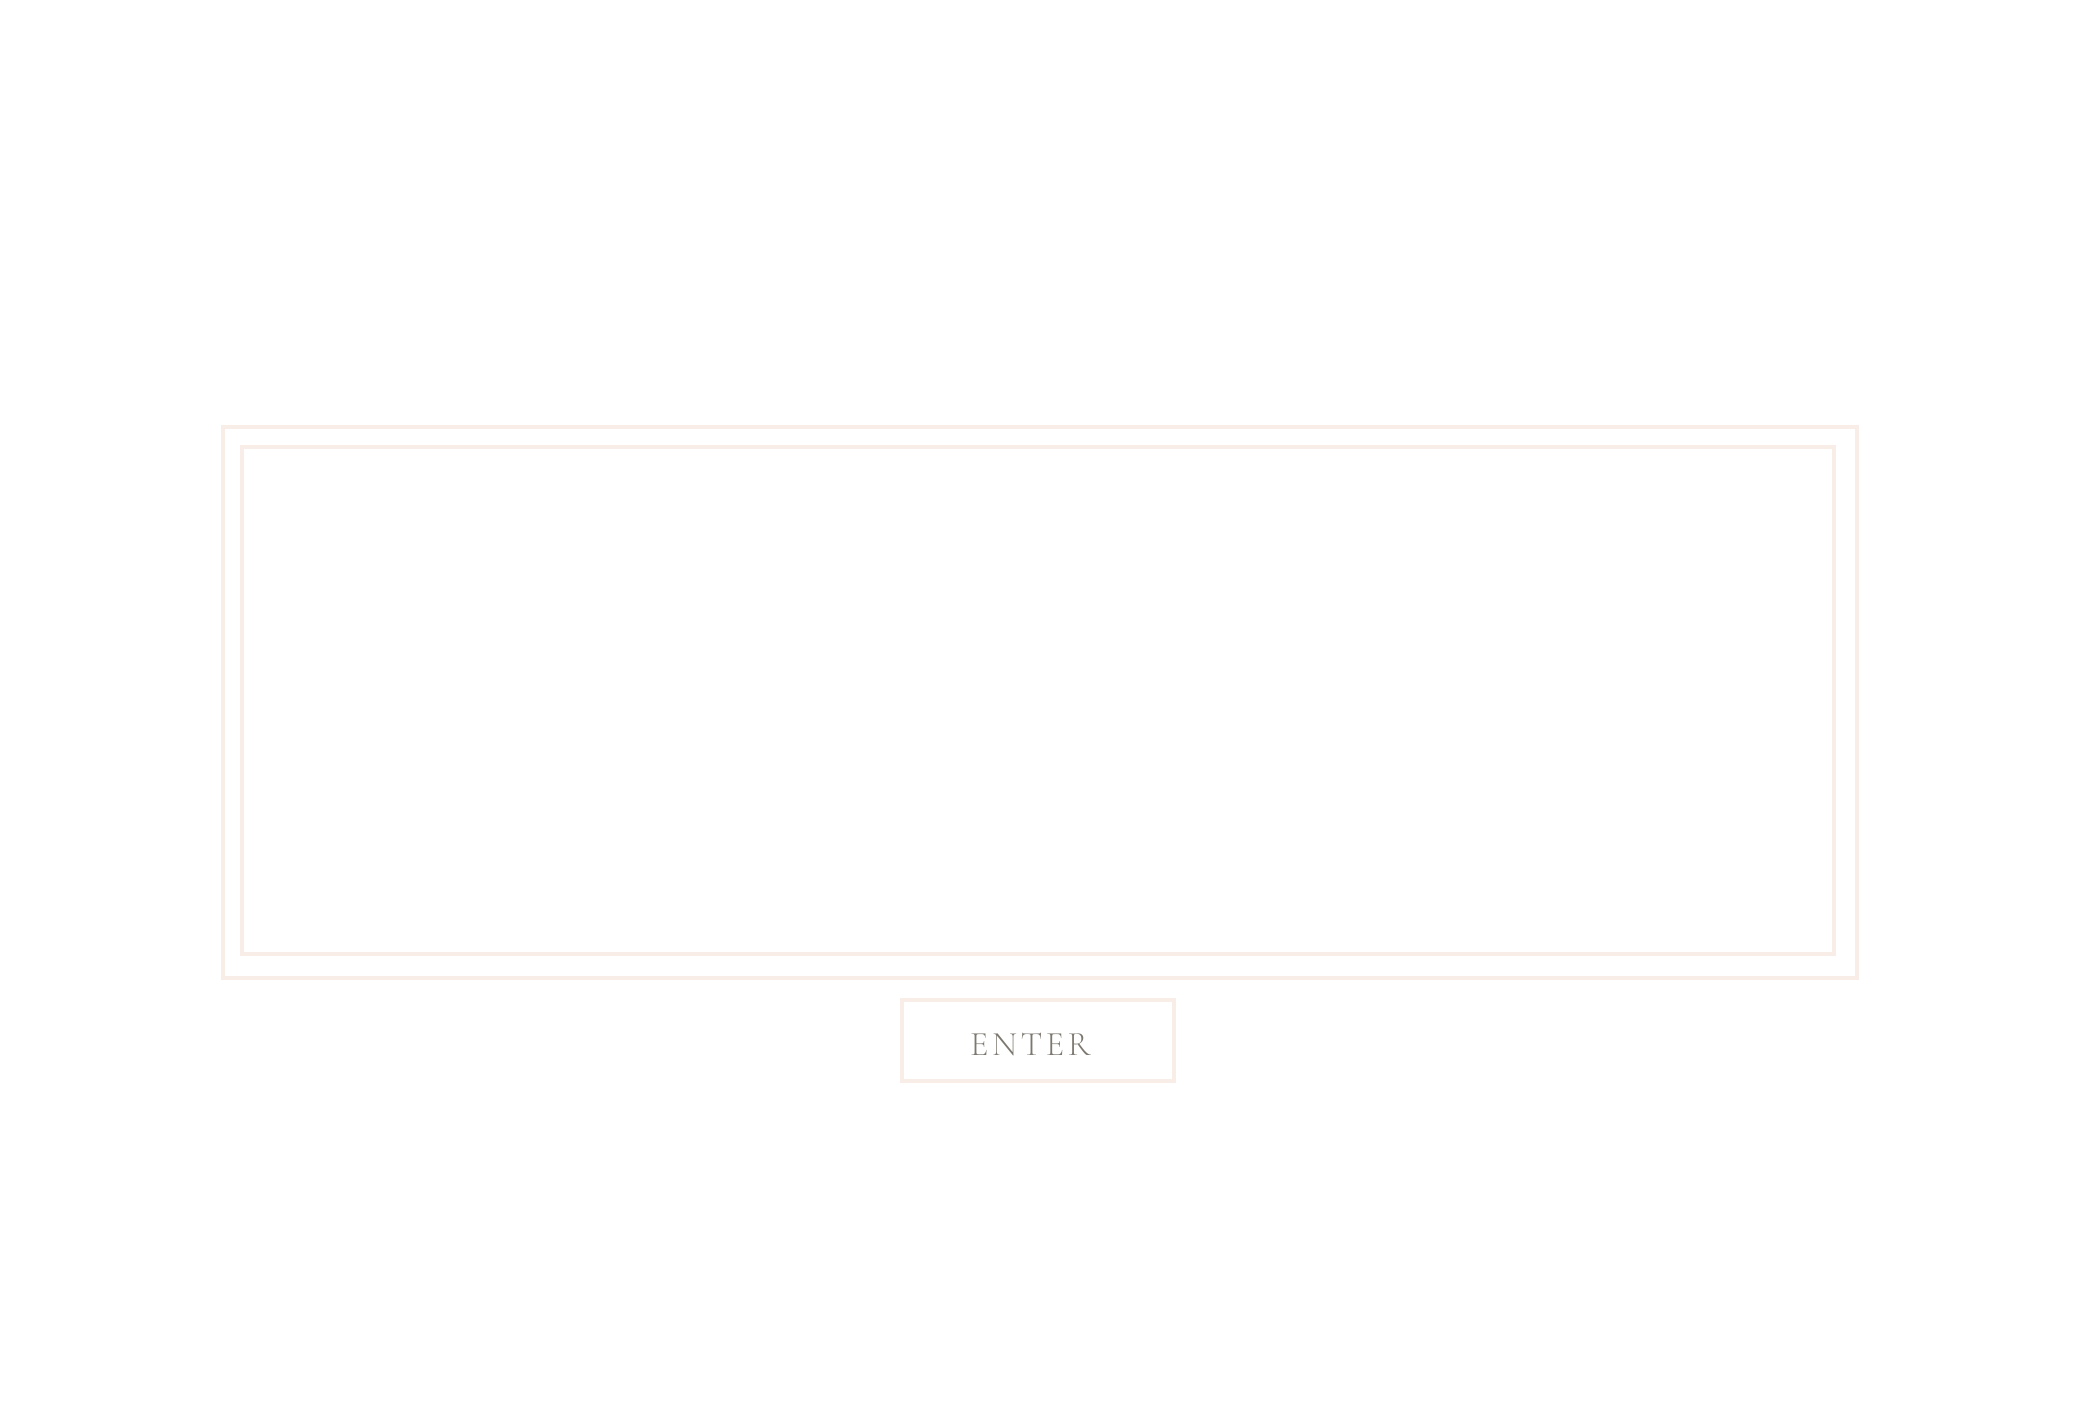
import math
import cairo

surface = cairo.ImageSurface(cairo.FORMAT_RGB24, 2076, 1407)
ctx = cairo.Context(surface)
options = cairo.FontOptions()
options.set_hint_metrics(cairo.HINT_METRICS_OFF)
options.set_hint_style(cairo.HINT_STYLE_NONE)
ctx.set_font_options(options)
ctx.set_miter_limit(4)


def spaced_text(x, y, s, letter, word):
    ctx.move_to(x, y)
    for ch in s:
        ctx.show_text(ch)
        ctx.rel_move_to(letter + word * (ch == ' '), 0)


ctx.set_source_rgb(1, 1, 1)
ctx.paint()
ctx.rectangle(242, 447, 1592, 507)
ctx.set_source_rgb(0.969, 0.929, 0.906)
ctx.set_line_width(4)
ctx.stroke()
ctx.rectangle(223, 427, 1634, 551)
ctx.stroke()
ctx.rectangle(902, 1000, 272, 81)
ctx.stroke()
ctx.select_font_face("Cormorant Garamond Light")
ctx.set_font_size(34.5)
ctx.set_source_rgb(0.486, 0.471, 0.439)
spaced_text(970, 1055, "ENTER", 3.5, 0)
surface.write_to_png("page.png")
